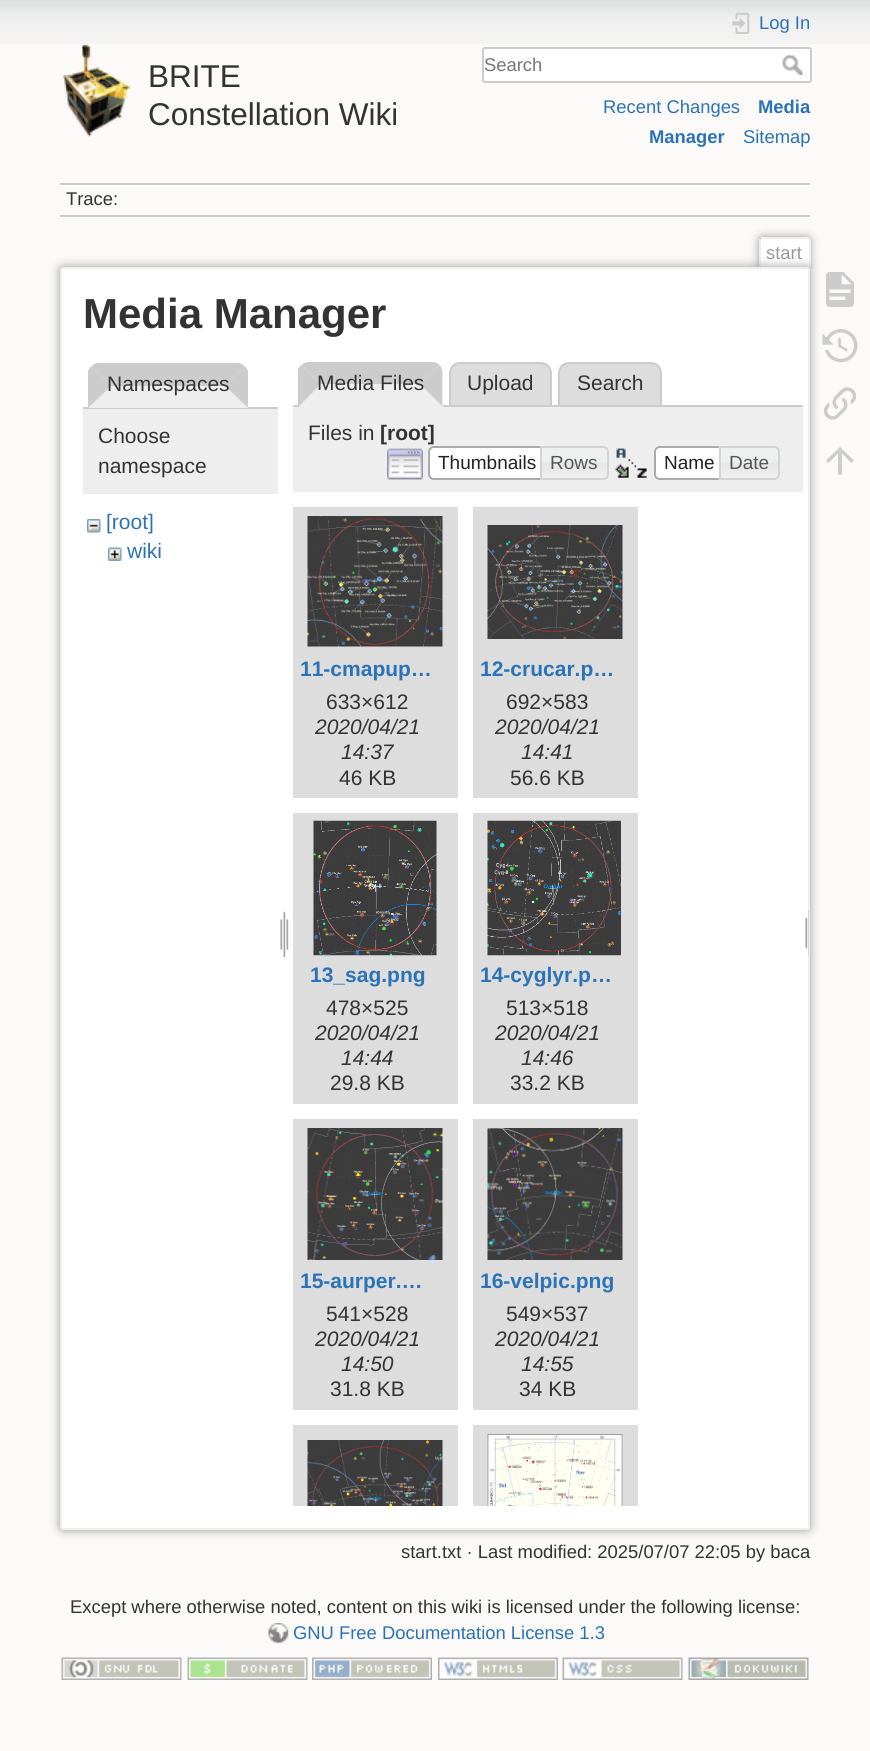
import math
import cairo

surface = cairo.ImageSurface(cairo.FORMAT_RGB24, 870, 1751)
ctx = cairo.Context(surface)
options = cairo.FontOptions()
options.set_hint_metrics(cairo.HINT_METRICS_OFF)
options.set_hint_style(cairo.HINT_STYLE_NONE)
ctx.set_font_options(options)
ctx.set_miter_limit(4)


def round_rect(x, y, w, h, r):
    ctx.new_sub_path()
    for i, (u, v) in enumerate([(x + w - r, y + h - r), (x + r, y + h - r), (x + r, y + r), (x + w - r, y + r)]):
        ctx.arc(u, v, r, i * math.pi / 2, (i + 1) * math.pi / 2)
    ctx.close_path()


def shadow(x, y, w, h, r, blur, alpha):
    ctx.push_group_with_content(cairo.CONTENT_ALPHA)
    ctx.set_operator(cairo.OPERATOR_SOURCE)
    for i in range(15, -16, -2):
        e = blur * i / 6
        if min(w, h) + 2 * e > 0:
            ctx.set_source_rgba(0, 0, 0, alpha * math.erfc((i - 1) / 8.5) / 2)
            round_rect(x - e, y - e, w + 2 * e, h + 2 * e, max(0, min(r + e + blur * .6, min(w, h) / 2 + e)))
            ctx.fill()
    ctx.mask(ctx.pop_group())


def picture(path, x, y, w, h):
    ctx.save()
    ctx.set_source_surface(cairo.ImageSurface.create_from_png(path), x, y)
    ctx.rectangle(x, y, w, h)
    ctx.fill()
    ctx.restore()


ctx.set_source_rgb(0.984, 0.98, 0.976)
ctx.paint()
picture("img1.png", 0, 0, 870, 44)
picture("img2.png", 62, 44, 69, 93)
ctx.select_font_face("Liberation Sans")
ctx.set_font_size(31.5)
ctx.set_source_rgb(0.2, 0.2, 0.2)
ctx.move_to(148, 87)
ctx.show_text("BRITE")
ctx.move_to(148, 125)
ctx.show_text("Constellation Wiki")
picture("img3.png", 732, 12, 18, 22)
ctx.set_font_size(18.4)
ctx.set_source_rgb(0.169, 0.451, 0.718)
ctx.move_to(759, 29)
ctx.show_text("Log In")
ctx.set_source_rgb(1, 1, 1)
round_rect(483, 48, 328, 34, 2)
ctx.fill_preserve()
ctx.set_source_rgb(0.8, 0.8, 0.8)
ctx.stroke()
ctx.set_source_rgb(0.459, 0.459, 0.459)
ctx.move_to(484, 71)
ctx.show_text("Search")
picture("img4.png", 781, 54, 22, 21)
ctx.set_source_rgb(0.169, 0.451, 0.718)
ctx.move_to(603, 113)
ctx.show_text("Recent Changes")
ctx.select_font_face("Liberation Sans", cairo.FONT_SLANT_NORMAL, cairo.FONT_WEIGHT_BOLD)
ctx.move_to(758, 113)
ctx.show_text("Media")
ctx.move_to(649, 143)
ctx.show_text("Manager")
ctx.select_font_face("Liberation Sans")
ctx.move_to(743, 143)
ctx.show_text("Sitemap")
ctx.set_source_rgb(0.8, 0.8, 0.8)
ctx.rectangle(60, 183, 750, 2)
ctx.fill()
ctx.set_source_rgb(1, 1, 1)
ctx.rectangle(60, 217, 750, 1)
ctx.fill()
ctx.rectangle(60, 185, 750, 2)
ctx.fill()
ctx.set_source_rgb(0.8, 0.8, 0.8)
ctx.rectangle(60, 215, 750, 2)
ctx.fill()
ctx.set_source_rgb(0.2, 0.2, 0.2)
ctx.move_to(66, 205)
ctx.show_text("Trace:")
ctx.save()
ctx.rectangle(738, 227, 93, 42)
ctx.clip()
ctx.set_source_rgb(0.6, 0.6, 0.6)
shadow(759, 237, 51, 32, 3, 4.5, 1)
ctx.restore()
ctx.set_source_rgb(1, 1, 1)
ctx.new_path()
ctx.move_to(762.5, 239)
ctx.line_to(807.5, 239)
ctx.curve_to(808.5, 239, 809, 239.5, 809, 240.5)
ctx.line_to(809, 269)
ctx.line_to(761, 269)
ctx.line_to(761, 240.5)
ctx.curve_to(761, 239.5, 761.5, 239, 762.5, 239)
ctx.close_path()
ctx.fill()
ctx.set_source_rgb(0.933, 0.933, 0.933)
ctx.rectangle(761, 237, 48, 2)
ctx.fill()
ctx.rectangle(809, 239, 2, 30)
ctx.fill()
ctx.rectangle(759, 239, 2, 30)
ctx.fill()
ctx.set_source_rgb(0.6, 0.6, 0.6)
ctx.move_to(766, 259)
ctx.show_text("start")
ctx.set_source_rgb(0.6, 0.6, 0.6)
shadow(60, 267, 750, 1263, 3, 5, 1)
ctx.set_source_rgb(1, 1, 1)
round_rect(61, 268, 748, 1261, 2)
ctx.fill_preserve()
ctx.set_source_rgb(0.933, 0.933, 0.933)
ctx.stroke()
ctx.select_font_face("Liberation Sans", cairo.FONT_SLANT_NORMAL, cairo.FONT_WEIGHT_BOLD)
ctx.set_font_size(42)
ctx.set_source_rgb(0.2, 0.2, 0.2)
ctx.move_to(83, 328)
ctx.show_text("Media Manager")
ctx.set_source_rgb(0.8, 0.8, 0.8)
ctx.rectangle(83, 407, 195, 2)
ctx.fill()
ctx.set_source_rgb(0.933, 0.933, 0.933)
ctx.new_path()
ctx.move_to(100, 363)
ctx.line_to(237, 363)
ctx.curve_to(243, 363, 248, 368, 248, 374)
ctx.line_to(248, 408)
ctx.line_to(89, 408)
ctx.line_to(89, 374)
ctx.curve_to(89, 368, 94, 363, 100, 363)
ctx.close_path()
ctx.fill()
ctx.set_source_rgb(0.8, 0.8, 0.8)
ctx.new_path()
ctx.move_to(99, 363)
ctx.line_to(237, 363)
ctx.curve_to(240, 363, 243, 364, 244, 366)
ctx.line_to(225, 386)
ctx.line_to(111, 386)
ctx.line_to(92, 366)
ctx.curve_to(93, 364, 96, 363, 99, 363)
ctx.close_path()
ctx.fill()
ctx.new_path()
ctx.move_to(244, 366)
ctx.line_to(225, 386)
ctx.line_to(248, 408)
ctx.line_to(248, 371)
ctx.curve_to(247, 369, 246, 367, 244, 366)
ctx.close_path()
ctx.fill()
ctx.set_source_rgb(0.933, 0.933, 0.933)
ctx.new_path()
ctx.move_to(248, 408)
ctx.line_to(225, 386)
ctx.line_to(111, 386)
ctx.line_to(88, 408)
ctx.close_path()
ctx.fill()
ctx.set_source_rgb(0.8, 0.8, 0.8)
ctx.new_path()
ctx.move_to(88, 408)
ctx.line_to(111, 386)
ctx.line_to(92, 366)
ctx.curve_to(90, 367, 89, 369, 88, 371)
ctx.close_path()
ctx.fill()
ctx.select_font_face("Liberation Sans")
ctx.set_font_size(21)
ctx.set_source_rgb(0.2, 0.2, 0.2)
ctx.move_to(107, 391)
ctx.show_text("Namespaces")
ctx.set_source_rgb(0.933, 0.933, 0.933)
ctx.rectangle(83, 409, 195, 85)
ctx.fill()
ctx.set_source_rgb(0.2, 0.2, 0.2)
ctx.move_to(98, 443)
ctx.show_text("Choose")
ctx.move_to(98, 473)
ctx.show_text("namespace")
picture("img5.png", 87, 519, 14, 14)
ctx.set_source_rgb(0.169, 0.451, 0.718)
ctx.move_to(106, 529)
ctx.show_text("[root]")
picture("img6.png", 108, 547, 14, 14)
ctx.move_to(127, 558)
ctx.show_text("wiki")
picture("img7.png", 280, 910, 9, 48)
ctx.set_source_rgb(0.867, 0.867, 0.867)
ctx.new_path()
ctx.move_to(460, 363)
ctx.line_to(541, 363)
ctx.curve_to(546.5, 363, 551, 367.5, 551, 373)
ctx.line_to(551, 406)
ctx.line_to(450, 406)
ctx.line_to(450, 373)
ctx.curve_to(450, 367.5, 454.5, 363, 460, 363)
ctx.close_path()
ctx.fill_preserve()
ctx.set_source_rgb(0.8, 0.8, 0.8)
ctx.stroke()
ctx.set_source_rgb(0.867, 0.867, 0.867)
ctx.new_path()
ctx.move_to(569, 363)
ctx.line_to(651, 363)
ctx.curve_to(656.5, 363, 661, 367.5, 661, 373)
ctx.line_to(661, 406)
ctx.line_to(559, 406)
ctx.line_to(559, 373)
ctx.curve_to(559, 367.5, 563.5, 363, 569, 363)
ctx.close_path()
ctx.fill_preserve()
ctx.set_source_rgb(0.8, 0.8, 0.8)
ctx.stroke()
ctx.rectangle(293, 405, 510, 2)
ctx.fill()
ctx.set_source_rgb(0.933, 0.933, 0.933)
ctx.new_path()
ctx.move_to(310, 362)
ctx.line_to(432, 362)
ctx.curve_to(438, 362, 443, 367, 443, 373)
ctx.line_to(443, 407)
ctx.line_to(299, 407)
ctx.line_to(299, 373)
ctx.curve_to(299, 367, 304, 362, 310, 362)
ctx.close_path()
ctx.fill()
ctx.set_source_rgb(0.8, 0.8, 0.8)
ctx.new_path()
ctx.move_to(309, 362)
ctx.curve_to(306, 362, 303, 363, 302, 365)
ctx.line_to(321, 384)
ctx.line_to(420, 384)
ctx.line_to(439, 365)
ctx.curve_to(438, 363, 435, 362, 432, 362)
ctx.close_path()
ctx.fill()
ctx.new_path()
ctx.move_to(442, 406)
ctx.line_to(442, 372)
ctx.curve_to(442, 369, 441, 366, 439, 365)
ctx.line_to(420, 384)
ctx.close_path()
ctx.fill()
ctx.set_source_rgb(0.933, 0.933, 0.933)
ctx.new_path()
ctx.move_to(442, 406)
ctx.line_to(420, 384)
ctx.line_to(321, 384)
ctx.line_to(299, 406)
ctx.close_path()
ctx.fill()
ctx.set_source_rgb(0.8, 0.8, 0.8)
ctx.new_path()
ctx.move_to(298, 369)
ctx.curve_to(299, 367, 300, 366, 302, 365)
ctx.line_to(321, 384)
ctx.line_to(299, 406)
ctx.line_to(298, 406)
ctx.close_path()
ctx.fill()
ctx.set_source_rgb(0.2, 0.2, 0.2)
ctx.move_to(317, 390)
ctx.show_text("Media Files")
ctx.move_to(467, 390)
ctx.show_text("Upload")
ctx.move_to(577, 390)
ctx.show_text("Search")
ctx.set_source_rgb(0.933, 0.933, 0.933)
ctx.rectangle(293, 407, 510, 85)
ctx.fill()
ctx.set_source_rgb(0.2, 0.2, 0.2)
ctx.move_to(308, 440)
ctx.show_text("Files in")
ctx.select_font_face("Liberation Sans", cairo.FONT_SLANT_NORMAL, cairo.FONT_WEIGHT_BOLD)
ctx.move_to(380, 440)
ctx.show_text("[root]")
picture("img8.png", 387, 448, 36, 32)
picture("img9.png", 427, 445, 120, 35)
ctx.new_path()
ctx.move_to(434, 447)
ctx.line_to(547, 447)
ctx.line_to(547, 479)
ctx.line_to(434, 479)
ctx.curve_to(431, 479, 429, 477, 429, 474)
ctx.line_to(429, 452)
ctx.curve_to(429, 449, 431, 447, 434, 447)
ctx.close_path()
ctx.set_source_rgb(0.667, 0.667, 0.667)
ctx.stroke()
ctx.select_font_face("Liberation Sans")
ctx.set_font_size(19)
ctx.set_source_rgb(0.129, 0.129, 0.129)
ctx.move_to(438, 469)
ctx.show_text("Thumbnails")
picture("img10.png", 542, 446, 67, 34)
ctx.new_path()
ctx.move_to(541, 447)
ctx.line_to(603, 447)
ctx.curve_to(606, 447, 608, 449, 608, 452)
ctx.line_to(608, 474)
ctx.curve_to(608, 477, 606, 479, 603, 479)
ctx.line_to(541, 479)
ctx.close_path()
ctx.set_source_rgb(0.827, 0.827, 0.827)
ctx.stroke()
ctx.set_source_rgb(0.333, 0.333, 0.333)
ctx.move_to(550, 469)
ctx.show_text("Rows")
picture("img11.png", 614, 448, 33, 30)
ctx.set_source_rgb(1, 1, 1)
ctx.new_path()
ctx.move_to(660, 446)
ctx.line_to(726, 446)
ctx.line_to(726, 480)
ctx.line_to(660, 480)
ctx.curve_to(656.5, 480, 654, 477.5, 654, 474)
ctx.line_to(654, 452)
ctx.curve_to(654, 448.5, 656.5, 446, 660, 446)
ctx.close_path()
ctx.fill()
picture("img12.png", 654, 445, 72, 5)
ctx.new_path()
ctx.move_to(660, 447)
ctx.line_to(725, 447)
ctx.line_to(725, 479)
ctx.line_to(660, 479)
ctx.curve_to(657, 479, 655, 477, 655, 474)
ctx.line_to(655, 452)
ctx.curve_to(655, 449, 657, 447, 660, 447)
ctx.close_path()
ctx.set_source_rgb(0.667, 0.667, 0.667)
ctx.stroke()
ctx.set_source_rgb(0.129, 0.129, 0.129)
ctx.move_to(664, 469)
ctx.show_text("Name")
picture("img13.png", 718, 446, 62, 34)
ctx.new_path()
ctx.move_to(720, 447)
ctx.line_to(774, 447)
ctx.curve_to(777, 447, 779, 449, 779, 452)
ctx.line_to(779, 474)
ctx.curve_to(779, 477, 777, 479, 774, 479)
ctx.line_to(720, 479)
ctx.close_path()
ctx.set_source_rgb(0.827, 0.827, 0.827)
ctx.stroke()
ctx.set_source_rgb(0.333, 0.333, 0.333)
ctx.move_to(729, 469)
ctx.show_text("Date")
ctx.set_source_rgb(0.867, 0.867, 0.867)
ctx.rectangle(293, 507, 165, 291)
ctx.fill()
picture("img14.png", 307, 516, 136, 131)
ctx.select_font_face("Liberation Sans", cairo.FONT_SLANT_NORMAL, cairo.FONT_WEIGHT_BOLD)
ctx.set_font_size(21)
ctx.set_source_rgb(0.169, 0.451, 0.718)
ctx.move_to(300, 676)
ctx.show_text("11-cmapup…")
ctx.select_font_face("Liberation Sans")
ctx.set_source_rgb(0.2, 0.2, 0.2)
ctx.move_to(326, 709)
ctx.show_text("633×612")
ctx.select_font_face("Liberation Sans", cairo.FONT_SLANT_ITALIC)
ctx.move_to(315, 734)
ctx.show_text("2020/04/21")
ctx.move_to(341, 759)
ctx.show_text("14:37")
ctx.select_font_face("Liberation Sans")
ctx.move_to(339, 785)
ctx.show_text("46 KB")
ctx.set_source_rgb(0.867, 0.867, 0.867)
ctx.rectangle(473, 507, 165, 291)
ctx.fill()
picture("img15.png", 487, 525, 136, 114)
ctx.select_font_face("Liberation Sans", cairo.FONT_SLANT_NORMAL, cairo.FONT_WEIGHT_BOLD)
ctx.set_source_rgb(0.169, 0.451, 0.718)
ctx.move_to(480, 676)
ctx.show_text("12-crucar.p…")
ctx.select_font_face("Liberation Sans")
ctx.set_source_rgb(0.2, 0.2, 0.2)
ctx.move_to(506, 709)
ctx.show_text("692×583")
ctx.select_font_face("Liberation Sans", cairo.FONT_SLANT_ITALIC)
ctx.move_to(495, 734)
ctx.show_text("2020/04/21")
ctx.move_to(521, 759)
ctx.show_text("14:41")
ctx.select_font_face("Liberation Sans")
ctx.move_to(510, 785)
ctx.show_text("56.6 KB")
ctx.set_source_rgb(0.867, 0.867, 0.867)
ctx.rectangle(293, 813, 165, 291)
ctx.fill()
picture("img16.png", 313, 820, 124, 136)
ctx.select_font_face("Liberation Sans", cairo.FONT_SLANT_NORMAL, cairo.FONT_WEIGHT_BOLD)
ctx.set_source_rgb(0.169, 0.451, 0.718)
ctx.move_to(310, 982)
ctx.show_text("13_sag.png")
ctx.select_font_face("Liberation Sans")
ctx.set_source_rgb(0.2, 0.2, 0.2)
ctx.move_to(326, 1015)
ctx.show_text("478×525")
ctx.select_font_face("Liberation Sans", cairo.FONT_SLANT_ITALIC)
ctx.move_to(315, 1040)
ctx.show_text("2020/04/21")
ctx.move_to(341, 1065)
ctx.show_text("14:44")
ctx.select_font_face("Liberation Sans")
ctx.move_to(330, 1090)
ctx.show_text("29.8 KB")
ctx.set_source_rgb(0.867, 0.867, 0.867)
ctx.rectangle(473, 813, 165, 291)
ctx.fill()
picture("img17.png", 487, 820, 134, 136)
ctx.select_font_face("Liberation Sans", cairo.FONT_SLANT_NORMAL, cairo.FONT_WEIGHT_BOLD)
ctx.set_source_rgb(0.169, 0.451, 0.718)
ctx.move_to(480, 982)
ctx.show_text("14-cyglyr.p…")
ctx.select_font_face("Liberation Sans")
ctx.set_source_rgb(0.2, 0.2, 0.2)
ctx.move_to(506, 1015)
ctx.show_text("513×518")
ctx.select_font_face("Liberation Sans", cairo.FONT_SLANT_ITALIC)
ctx.move_to(495, 1040)
ctx.show_text("2020/04/21")
ctx.move_to(521, 1065)
ctx.show_text("14:46")
ctx.select_font_face("Liberation Sans")
ctx.move_to(510, 1090)
ctx.show_text("33.2 KB")
ctx.set_source_rgb(0.867, 0.867, 0.867)
ctx.rectangle(293, 1119, 165, 291)
ctx.fill()
picture("img18.png", 307, 1128, 136, 132)
ctx.select_font_face("Liberation Sans", cairo.FONT_SLANT_NORMAL, cairo.FONT_WEIGHT_BOLD)
ctx.set_source_rgb(0.169, 0.451, 0.718)
ctx.move_to(300, 1288)
ctx.show_text("15-aurper.…")
ctx.select_font_face("Liberation Sans")
ctx.set_source_rgb(0.2, 0.2, 0.2)
ctx.move_to(326, 1321)
ctx.show_text("541×528")
ctx.select_font_face("Liberation Sans", cairo.FONT_SLANT_ITALIC)
ctx.move_to(315, 1346)
ctx.show_text("2020/04/21")
ctx.move_to(341, 1371)
ctx.show_text("14:50")
ctx.select_font_face("Liberation Sans")
ctx.move_to(330, 1396)
ctx.show_text("31.8 KB")
ctx.set_source_rgb(0.867, 0.867, 0.867)
ctx.rectangle(473, 1119, 165, 291)
ctx.fill()
picture("img19.png", 487, 1128, 136, 132)
ctx.select_font_face("Liberation Sans", cairo.FONT_SLANT_NORMAL, cairo.FONT_WEIGHT_BOLD)
ctx.set_source_rgb(0.169, 0.451, 0.718)
ctx.move_to(480, 1288)
ctx.show_text("16-velpic.png")
ctx.select_font_face("Liberation Sans")
ctx.set_source_rgb(0.2, 0.2, 0.2)
ctx.move_to(506, 1321)
ctx.show_text("549×537")
ctx.select_font_face("Liberation Sans", cairo.FONT_SLANT_ITALIC)
ctx.move_to(495, 1346)
ctx.show_text("2020/04/21")
ctx.move_to(521, 1371)
ctx.show_text("14:55")
ctx.select_font_face("Liberation Sans")
ctx.move_to(519, 1396)
ctx.show_text("34 KB")
ctx.set_source_rgb(0.867, 0.867, 0.867)
ctx.rectangle(293, 1425, 165, 81)
ctx.fill()
picture("img20.png", 307, 1440, 136, 66)
ctx.rectangle(473, 1425, 165, 81)
ctx.fill()
picture("img21.png", 487, 1434, 136, 72)
picture("img22.png", 805, 910, 4, 46)
ctx.set_font_size(18.4)
ctx.set_source_rgb(0.2, 0.2, 0.2)
ctx.move_to(401, 1558)
ctx.show_text("start.txt · Last modified: 2025/07/07 22:05 by baca")
picture("img23.png", 826, 272, 28, 35)
picture("img24.png", 822, 329, 36, 34)
picture("img25.png", 823, 387, 34, 33)
ctx.set_source_rgb(0.8, 0.8, 0.8)
ctx.new_path()
ctx.move_to(842, 474.5)
ctx.line_to(838, 474.5)
ctx.line_to(838, 453.5)
ctx.line_to(828.5, 463)
ctx.line_to(826, 460.5)
ctx.line_to(840, 447)
ctx.line_to(854, 460.5)
ctx.line_to(851.5, 463)
ctx.line_to(842, 453.5)
ctx.close_path()
ctx.fill()
ctx.set_source_rgb(0.2, 0.2, 0.2)
ctx.move_to(70, 1613)
ctx.show_text("Except where otherwise noted, content on this wiki is licensed under the following license:")
picture("img26.png", 268, 1623, 21, 21)
ctx.set_source_rgb(0.169, 0.451, 0.718)
ctx.move_to(293, 1639)
ctx.show_text("GNU Free Documentation License 1.3")
picture("img27.png", 61, 1657, 121, 23)
picture("img28.png", 187, 1657, 121, 23)
picture("img29.png", 312, 1657, 120, 23)
picture("img30.png", 438, 1657, 120, 23)
picture("img31.png", 562, 1657, 121, 23)
picture("img32.png", 688, 1657, 121, 23)
surface.write_to_png("page.png")
